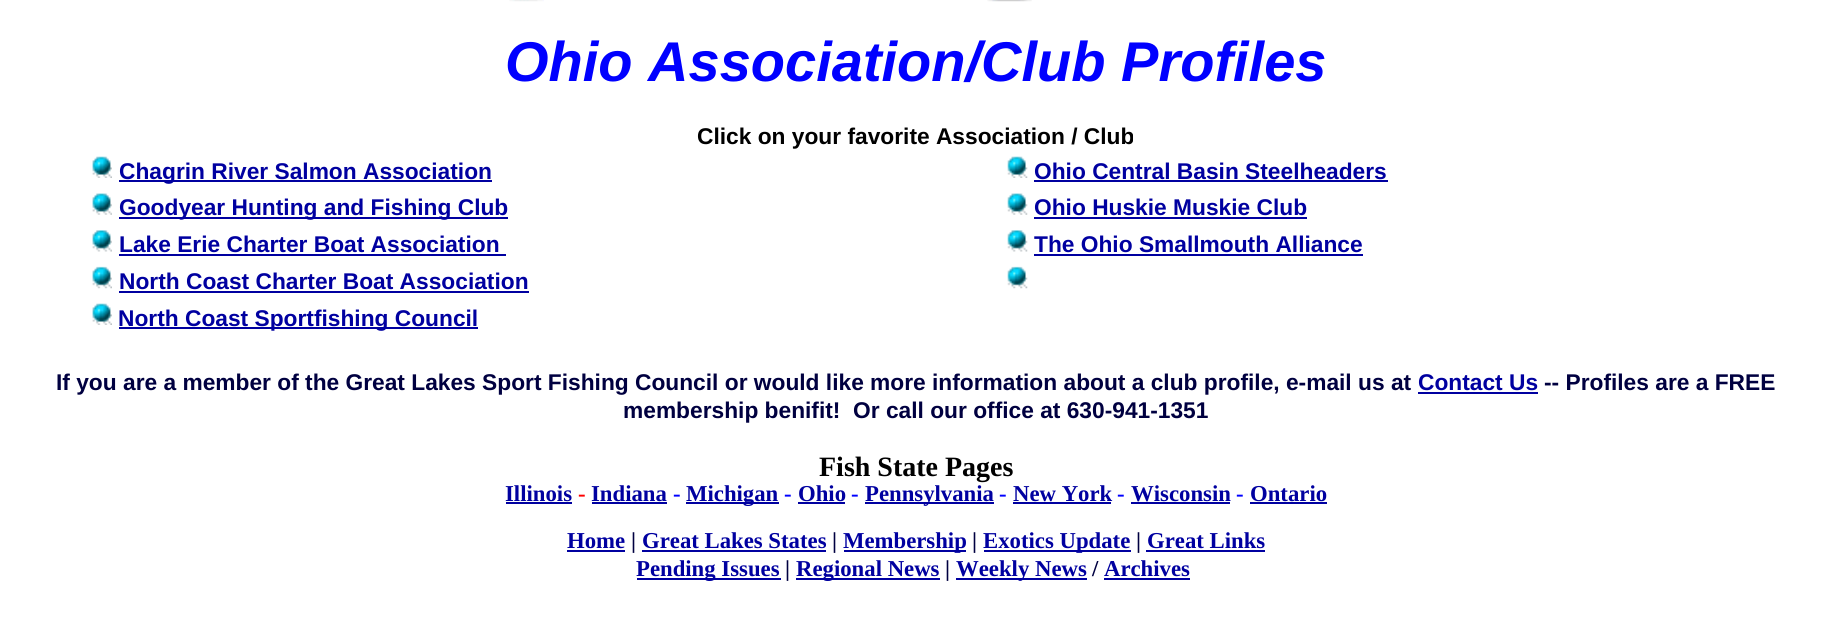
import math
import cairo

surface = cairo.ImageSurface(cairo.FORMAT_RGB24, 1832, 619)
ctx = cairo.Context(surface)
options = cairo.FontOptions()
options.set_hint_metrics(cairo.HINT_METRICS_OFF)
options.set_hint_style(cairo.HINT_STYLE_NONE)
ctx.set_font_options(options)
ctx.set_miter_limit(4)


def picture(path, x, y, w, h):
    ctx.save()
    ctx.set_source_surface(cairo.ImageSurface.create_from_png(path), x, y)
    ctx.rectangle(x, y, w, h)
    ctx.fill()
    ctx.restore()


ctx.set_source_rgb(1, 1, 1)
ctx.paint()
picture("img1.png", 509, 0, 35, 2)
picture("img2.png", 987, 0, 45, 2)
ctx.select_font_face("Liberation Sans", cairo.FONT_SLANT_ITALIC, cairo.FONT_WEIGHT_BOLD)
ctx.set_font_size(56)
ctx.set_source_rgb(0, 0, 1)
ctx.move_to(505, 81)
ctx.show_text("Ohio Association/Club Profiles")
ctx.select_font_face("Liberation Sans", cairo.FONT_SLANT_NORMAL, cairo.FONT_WEIGHT_BOLD)
ctx.set_font_size(22.75)
ctx.set_source_rgb(0, 0, 0)
ctx.move_to(697, 144)
ctx.show_text("Click on your favorite Association / Club")
picture("img3.png", 92, 156, 20, 22)
ctx.set_source_rgb(0, 0, 0.627)
ctx.rectangle(119, 180, 373, 2)
ctx.fill()
ctx.move_to(119, 179)
ctx.show_text("Chagrin River Salmon Association")
picture("img4.png", 1007, 156, 21, 22)
ctx.move_to(1034, 179)
ctx.show_text("Ohio Central Basin Steelheaders")
ctx.rectangle(1034, 180, 354, 2)
ctx.fill()
picture("img5.png", 92, 193, 20, 22)
ctx.rectangle(119, 217, 389, 2)
ctx.fill()
ctx.move_to(119, 215)
ctx.show_text("Goodyear Hunting and Fishing Club")
picture("img6.png", 1007, 193, 21, 22)
ctx.move_to(1034, 215)
ctx.show_text("Ohio Huskie Muskie Club")
ctx.rectangle(1034, 217, 273, 2)
ctx.fill()
picture("img7.png", 92, 230, 20, 22)
ctx.move_to(119, 252)
ctx.show_text("Lake Erie Charter Boat Association")
ctx.rectangle(119, 254, 387, 2)
ctx.fill()
picture("img8.png", 1007, 230, 21, 22)
ctx.move_to(1034, 252)
ctx.show_text("The Ohio Smallmouth Alliance")
ctx.rectangle(1034, 254, 329, 2)
ctx.fill()
picture("img9.png", 92, 266, 20, 23)
ctx.move_to(119, 289)
ctx.show_text("North Coast Charter Boat Association")
ctx.rectangle(119, 291, 410, 2)
ctx.fill()
picture("img10.png", 1007, 266, 21, 23)
picture("img3.png", 92, 303, 20, 22)
ctx.rectangle(119, 327, 359, 2)
ctx.fill()
ctx.move_to(118, 326)
ctx.show_text("North Coast Sportfishing Council")
ctx.set_source_rgb(0, 0, 0.251)
ctx.move_to(56, 390)
ctx.show_text("If you are a member of the Great Lakes Sport Fishing Council or would like more information about a club profile, e-mail us at")
ctx.set_source_rgb(0, 0, 0.627)
ctx.move_to(1418, 390)
ctx.show_text("Contact Us")
ctx.rectangle(1418, 392, 120, 2)
ctx.fill()
ctx.set_source_rgb(0, 0, 0.251)
ctx.move_to(1544, 390)
ctx.show_text("-- Profiles are a FREE")
ctx.move_to(623, 418)
ctx.show_text("membership benifit!  Or call our office at 630-941-1351")
ctx.select_font_face("Liberation Serif", cairo.FONT_SLANT_NORMAL, cairo.FONT_WEIGHT_BOLD)
ctx.set_font_size(28)
ctx.set_source_rgb(0, 0, 0)
ctx.move_to(819, 476)
ctx.show_text("Fish State Pages")
ctx.set_font_size(22.75)
ctx.set_source_rgb(0, 0, 0.627)
ctx.move_to(505, 501)
ctx.show_text("Illinois")
ctx.rectangle(506, 502, 66, 2)
ctx.fill()
ctx.set_source_rgb(1, 0, 0)
ctx.move_to(578, 501)
ctx.show_text("-")
ctx.set_source_rgb(0, 0, 0.627)
ctx.move_to(591, 501)
ctx.show_text("Indiana")
ctx.rectangle(592, 502, 75, 2)
ctx.fill()
ctx.set_source_rgb(0, 0, 1)
ctx.move_to(673, 501)
ctx.show_text("-")
ctx.set_source_rgb(0, 0, 0.627)
ctx.rectangle(686, 502, 93, 2)
ctx.fill()
ctx.move_to(686, 501)
ctx.show_text("Michigan")
ctx.set_source_rgb(0, 0, 1)
ctx.move_to(784, 501)
ctx.show_text("-")
ctx.set_source_rgb(0, 0, 0.627)
ctx.move_to(798, 501)
ctx.show_text("Ohio")
ctx.rectangle(798, 502, 47, 2)
ctx.fill()
ctx.set_source_rgb(0, 0, 1)
ctx.move_to(851, 501)
ctx.show_text("-")
ctx.set_source_rgb(0, 0, 0.627)
ctx.rectangle(865, 502, 129, 2)
ctx.fill()
ctx.move_to(865, 501)
ctx.show_text("Pennsylvania")
ctx.set_source_rgb(0, 0, 1)
ctx.move_to(999, 501)
ctx.show_text("-")
ctx.set_source_rgb(0, 0, 0.627)
ctx.move_to(1013, 501)
ctx.show_text("New York")
ctx.rectangle(1013, 502, 98, 2)
ctx.fill()
ctx.set_source_rgb(0, 0, 1)
ctx.move_to(1117, 501)
ctx.show_text("-")
ctx.set_source_rgb(0, 0, 0.627)
ctx.move_to(1131, 501)
ctx.show_text("Wisconsin")
ctx.rectangle(1131, 502, 99, 2)
ctx.fill()
ctx.set_source_rgb(0, 0, 1)
ctx.move_to(1236, 501)
ctx.show_text("-")
ctx.set_source_rgb(0, 0, 0.627)
ctx.move_to(1250, 501)
ctx.show_text("Ontario")
ctx.rectangle(1250, 502, 77, 2)
ctx.fill()
ctx.move_to(567, 548)
ctx.show_text("Home")
ctx.rectangle(567, 550, 58, 2)
ctx.fill()
ctx.set_source_rgb(0, 0, 0.251)
ctx.move_to(631, 548)
ctx.show_text("|")
ctx.set_source_rgb(0, 0, 0.627)
ctx.move_to(642, 548)
ctx.show_text("Great Lakes States")
ctx.rectangle(642, 550, 184, 2)
ctx.fill()
ctx.set_source_rgb(0, 0, 0.251)
ctx.move_to(832, 548)
ctx.show_text("|")
ctx.set_source_rgb(0, 0, 0.627)
ctx.rectangle(844, 550, 122, 2)
ctx.fill()
ctx.move_to(843, 548)
ctx.show_text("Membership")
ctx.set_source_rgb(0, 0, 0.251)
ctx.move_to(972, 548)
ctx.show_text("|")
ctx.set_source_rgb(0, 0, 0.627)
ctx.rectangle(984, 550, 147, 2)
ctx.fill()
ctx.move_to(983, 548)
ctx.show_text("Exotics Update")
ctx.set_source_rgb(0, 0, 0.251)
ctx.move_to(1136, 548)
ctx.show_text("|")
ctx.set_source_rgb(0, 0, 0.627)
ctx.move_to(1147, 548)
ctx.show_text("Great Links")
ctx.rectangle(1146, 550, 119, 2)
ctx.fill()
ctx.rectangle(637, 578, 144, 2)
ctx.fill()
ctx.move_to(636, 576)
ctx.show_text("Pending Issues")
ctx.set_source_rgb(0, 0, 0.251)
ctx.move_to(785, 576)
ctx.show_text("|")
ctx.set_source_rgb(0, 0, 0.627)
ctx.rectangle(796, 578, 144, 2)
ctx.fill()
ctx.move_to(796, 576)
ctx.show_text("Regional News")
ctx.set_source_rgb(0, 0, 0.251)
ctx.move_to(945, 576)
ctx.show_text("|")
ctx.set_source_rgb(0, 0, 0.627)
ctx.rectangle(956, 578, 131, 2)
ctx.fill()
ctx.move_to(956, 576)
ctx.show_text("Weekly News")
ctx.set_source_rgb(0, 0, 0.251)
ctx.move_to(1092, 576)
ctx.show_text("/")
ctx.set_source_rgb(0, 0, 0.627)
ctx.move_to(1104, 576)
ctx.show_text("Archives")
ctx.rectangle(1104, 578, 86, 2)
ctx.fill()
surface.write_to_png("page.png")
